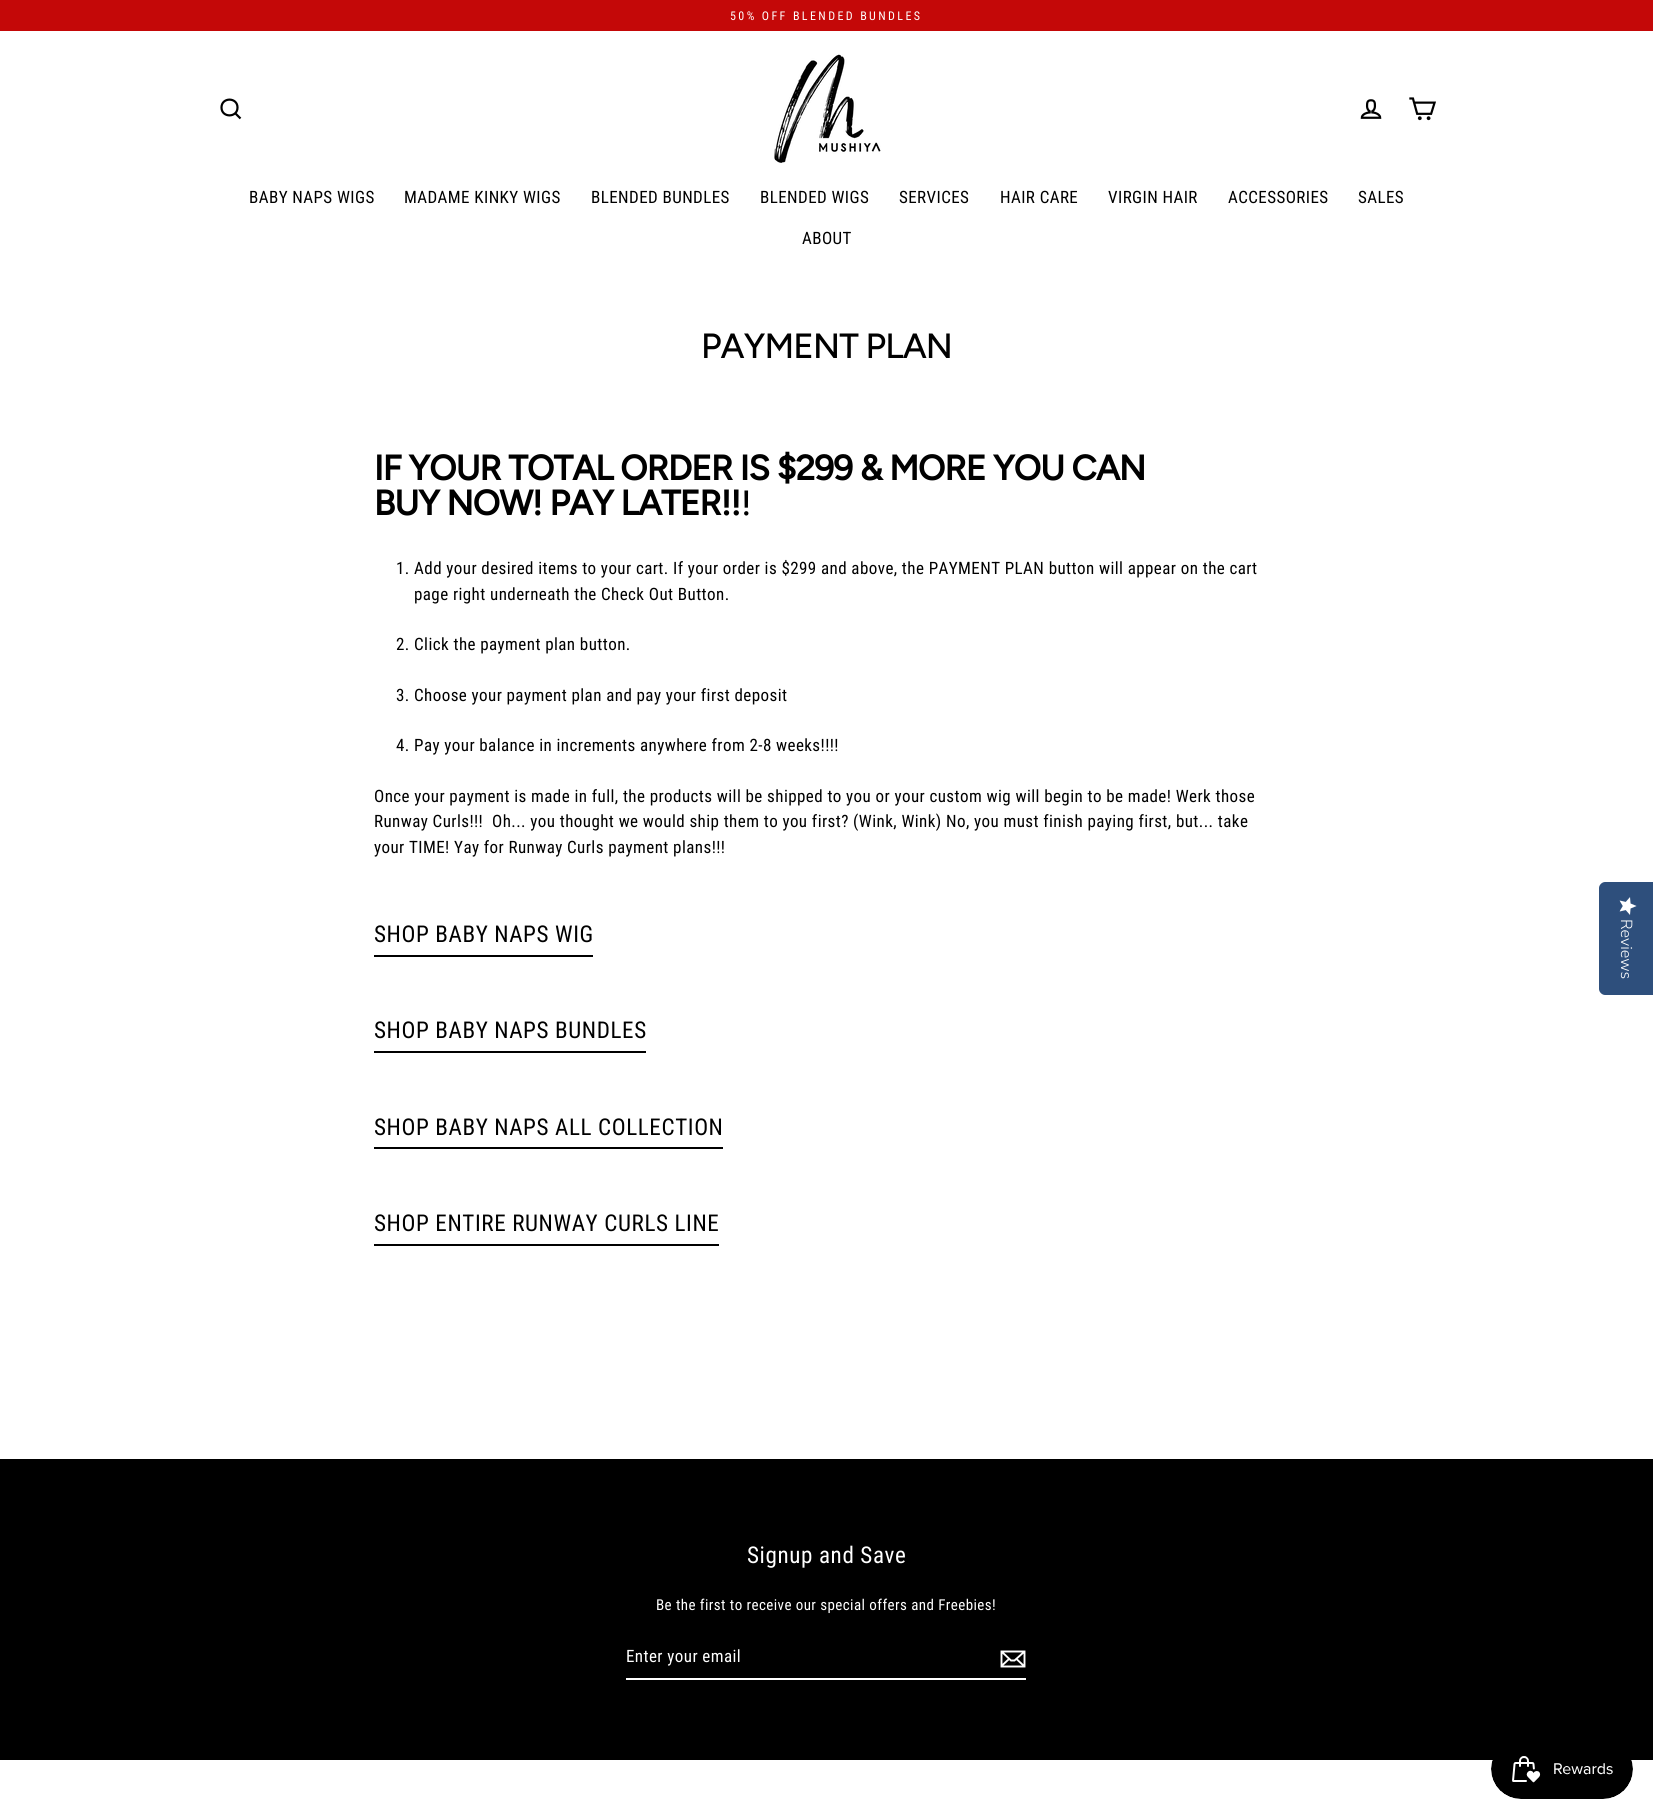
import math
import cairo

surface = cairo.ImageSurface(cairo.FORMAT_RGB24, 1653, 1819)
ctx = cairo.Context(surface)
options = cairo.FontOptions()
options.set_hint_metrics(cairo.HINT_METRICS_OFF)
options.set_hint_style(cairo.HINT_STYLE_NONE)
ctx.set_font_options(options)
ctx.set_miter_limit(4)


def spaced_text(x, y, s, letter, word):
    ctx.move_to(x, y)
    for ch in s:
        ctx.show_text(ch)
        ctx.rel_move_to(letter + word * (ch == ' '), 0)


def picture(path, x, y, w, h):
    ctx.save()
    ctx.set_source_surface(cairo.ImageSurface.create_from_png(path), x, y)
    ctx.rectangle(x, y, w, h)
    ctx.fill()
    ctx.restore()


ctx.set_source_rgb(1, 1, 1)
ctx.paint()
ctx.set_source_rgb(0.769, 0.035, 0.035)
ctx.rectangle(0, 0, 1653, 31)
ctx.fill()
ctx.select_font_face("Roboto Condensed")
ctx.set_font_size(12)
ctx.set_source_rgb(1, 1, 1)
spaced_text(730, 20, "50% OFF BLENDED BUNDLES", 2.4, 0)
ctx.new_path()
ctx.move_to(237.5, 107.5)
ctx.curve_to(237.5, 118, 221.5, 118, 221.5, 107.5)
ctx.curve_to(221.5, 97, 237.5, 97, 237.5, 107.5)
ctx.close_path()
ctx.move_to(240.5, 118.5)
ctx.line_to(235.5, 113.5)
ctx.set_source_rgb(0, 0, 0)
ctx.set_line_width(2.2)
ctx.stroke()
picture("img1.png", 774, 54, 107, 109)
picture("img2.png", 1360, 99, 22, 20)
picture("img3.png", 1409, 97, 27, 24)
ctx.set_font_size(17)
spaced_text(249, 203, "BABY NAPS WIGS", 0.42, 0)
spaced_text(404, 203, "MADAME KINKY WIGS", 0.42, 0)
spaced_text(591, 203, "BLENDED BUNDLES", 0.42, 0)
spaced_text(760, 203, "BLENDED WIGS", 0.42, 0)
spaced_text(899, 203, "SERVICES", 0.42, 0)
spaced_text(1000, 203, "HAIR CARE", 0.42, 0)
spaced_text(1108, 203, "VIRGIN HAIR", 0.42, 0)
spaced_text(1228, 203, "ACCESSORIES", 0.42, 0)
spaced_text(1358, 203, "SALES", 0.42, 0)
spaced_text(802, 244, "ABOUT", 0.42, 0)
ctx.select_font_face("Figtree Medium")
ctx.set_font_size(35)
spaced_text(701, 358, "PAYMENT PLAN", -0.9, 0)
ctx.select_font_face("Figtree", cairo.FONT_SLANT_NORMAL, cairo.FONT_WEIGHT_BOLD)
spaced_text(374, 480, "IF YOUR TOTAL ORDER IS $299 & MORE YOU CAN", -0.9, 0)
spaced_text(374, 515, "BUY NOW! PAY LATER!!", -0.9, 0)
ctx.select_font_face("Figtree Medium")
spaced_text(741, 515, "!", -0.9, 0)
ctx.select_font_face("Roboto Condensed")
ctx.set_font_size(17)
spaced_text(396, 574, "1. Add your desired items to your cart. If your order is $299 and above, the PAYMENT PLAN button will appear on the cart", 0.42, 0)
spaced_text(414, 600, "page right underneath the Check Out Button.", 0.42, 0)
spaced_text(396, 650, "2. Click the payment plan button.", 0.42, 0)
spaced_text(396, 701, "3. Choose your payment plan and pay your first deposit", 0.42, 0)
spaced_text(396, 751, "4. Pay your balance in increments anywhere from 2-8 weeks!!!!", 0.42, 0)
spaced_text(374, 802, "Once your payment is made in full, the products will be shipped to you or your custom wig will begin to be made! Werk those", 0.42, 0)
spaced_text(374, 827, "Runway Curls!!!", 0.42, 0)
spaced_text(492, 827, "Oh... you thought we would ship them to you first? (Wink, Wink) No, you must finish paying first, but... take", 0.42, 0)
spaced_text(374, 853, "your TIME! Yay for Runway Curls payment plans!!!", 0.42, 0)
ctx.rectangle(374, 955, 219, 2)
ctx.fill()
ctx.set_font_size(23.1)
spaced_text(374, 942, "SHOP BABY NAPS WIG", 0.6, 0)
ctx.rectangle(374, 1051, 272, 2)
ctx.fill()
spaced_text(374, 1038, "SHOP BABY NAPS BUNDLES", 0.6, 0)
ctx.rectangle(374, 1147, 349, 2)
ctx.fill()
spaced_text(374, 1135, "SHOP BABY NAPS ALL COLLECTION", 0.6, 0)
ctx.rectangle(374, 1244, 345, 2)
ctx.fill()
spaced_text(374, 1231, "SHOP ENTIRE RUNWAY CURLS LINE", 0.6, 0)
ctx.rectangle(0, 1459, 1653, 301)
ctx.fill()
ctx.set_source_rgb(1, 1, 1)
spaced_text(747, 1563, "Signup and Save", 0.6, 0)
ctx.set_font_size(15)
spaced_text(656, 1610, "Be the first to receive our special offers and Freebies!", 0.42, 0)
ctx.rectangle(626, 1678, 400, 2)
ctx.fill()
ctx.set_font_size(17)
spaced_text(626, 1662, "Enter your email", 0.42, 0)
ctx.new_path()
ctx.move_to(1024.5, 1666.5)
ctx.line_to(1001.5, 1666.5)
ctx.line_to(1001.5, 1651.5)
ctx.line_to(1024.5, 1651.5)
ctx.close_path()
ctx.move_to(1001.5, 1651.5)
ctx.line_to(1011, 1660.5)
ctx.line_to(1014.5, 1660.5)
ctx.line_to(1024.5, 1651.5)
ctx.move_to(1009, 1659)
ctx.line_to(1001.5, 1666)
ctx.move_to(1024.5, 1666.5)
ctx.line_to(1016.5, 1659)
ctx.set_line_width(1.9)
ctx.stroke()
ctx.set_source_rgb(0.18, 0.31, 0.486)
ctx.new_path()
ctx.move_to(1653, 882)
ctx.line_to(1653, 995)
ctx.line_to(1605, 995)
ctx.curve_to(1602, 995, 1599, 992, 1599, 989)
ctx.line_to(1599, 888)
ctx.curve_to(1599, 885, 1602, 882, 1605, 882)
ctx.close_path()
ctx.fill()
picture("img4.png", 1619, 897, 18, 18)
ctx.select_font_face("Nunito Sans Light")
ctx.set_font_size(16)
ctx.set_source_rgb(1, 1, 1)
ctx.save()
ctx.translate(1621, 919)
ctx.rotate(90 * math.pi / 180)
ctx.move_to(0, 0)
ctx.show_text("Reviews")
ctx.restore()
picture("img5.png", 1491, 1756, 142, 43)
surface.write_to_png("page.png")
